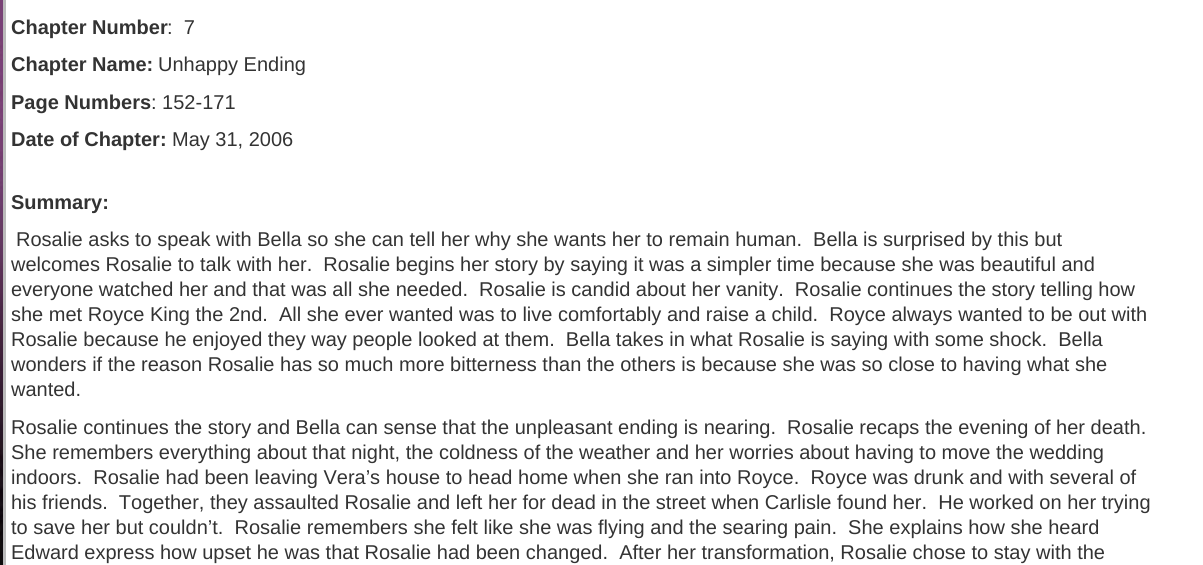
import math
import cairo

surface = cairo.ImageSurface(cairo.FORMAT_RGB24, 1203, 565)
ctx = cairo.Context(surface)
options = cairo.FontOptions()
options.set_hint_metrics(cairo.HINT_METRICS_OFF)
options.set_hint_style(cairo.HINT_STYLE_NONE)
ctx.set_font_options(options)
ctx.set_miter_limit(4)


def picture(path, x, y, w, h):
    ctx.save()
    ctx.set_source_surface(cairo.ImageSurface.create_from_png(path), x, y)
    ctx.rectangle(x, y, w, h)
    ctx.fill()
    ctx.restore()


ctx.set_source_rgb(1, 1, 1)
ctx.paint()
picture("img1.png", 0, 0, 3, 565)
ctx.rectangle(4.5, -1.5, 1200, 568)
ctx.set_source_rgb(0.733, 0.733, 0.733)
ctx.set_line_width(3)
ctx.stroke()
ctx.select_font_face("Liberation Sans", cairo.FONT_SLANT_NORMAL, cairo.FONT_WEIGHT_BOLD)
ctx.set_font_size(20)
ctx.set_source_rgb(0.2, 0.2, 0.2)
ctx.move_to(11, 34)
ctx.show_text("Chapter Number")
ctx.select_font_face("Liberation Sans")
ctx.move_to(167, 34)
ctx.show_text(":  7")
ctx.select_font_face("Liberation Sans", cairo.FONT_SLANT_NORMAL, cairo.FONT_WEIGHT_BOLD)
ctx.move_to(11, 71)
ctx.show_text("Chapter Name:")
ctx.select_font_face("Liberation Sans")
ctx.move_to(158, 71)
ctx.show_text("Unhappy Ending")
ctx.select_font_face("Liberation Sans", cairo.FONT_SLANT_NORMAL, cairo.FONT_WEIGHT_BOLD)
ctx.move_to(11, 109)
ctx.show_text("Page Numbers")
ctx.select_font_face("Liberation Sans")
ctx.move_to(151, 109)
ctx.show_text(": 152-171")
ctx.select_font_face("Liberation Sans", cairo.FONT_SLANT_NORMAL, cairo.FONT_WEIGHT_BOLD)
ctx.move_to(11, 146)
ctx.show_text("Date of Chapter:")
ctx.select_font_face("Liberation Sans")
ctx.move_to(172, 146)
ctx.show_text("May 31, 2006")
ctx.select_font_face("Liberation Sans", cairo.FONT_SLANT_NORMAL, cairo.FONT_WEIGHT_BOLD)
ctx.move_to(11, 209)
ctx.show_text("Summary:")
ctx.select_font_face("Liberation Sans")
ctx.move_to(16, 246)
ctx.show_text("Rosalie asks to speak with Bella so she can tell her why she wants her to remain human.  Bella is surprised by this but")
ctx.move_to(11, 271)
ctx.show_text("welcomes Rosalie to talk with her.  Rosalie begins her story by saying it was a simpler time because she was beautiful and")
ctx.move_to(11, 296)
ctx.show_text("everyone watched her and that was all she needed.  Rosalie is candid about her vanity.  Rosalie continues the story telling how")
ctx.move_to(11, 321)
ctx.show_text("she met Royce King the 2nd.  All she ever wanted was to live comfortably and raise a child.  Royce always wanted to be out with")
ctx.move_to(11, 346)
ctx.show_text("Rosalie because he enjoyed they way people looked at them.  Bella takes in what Rosalie is saying with some shock.  Bella")
ctx.move_to(11, 371)
ctx.show_text("wonders if the reason Rosalie has so much more bitterness than the others is because she was so close to having what she")
ctx.move_to(11, 396)
ctx.show_text("wanted.")
ctx.move_to(11, 434)
ctx.show_text("Rosalie continues the story and Bella can sense that the unpleasant ending is nearing.  Rosalie recaps the evening of her death.")
ctx.move_to(11, 459)
ctx.show_text("She remembers everything about that night, the coldness of the weather and her worries about having to move the wedding")
ctx.move_to(11, 484)
ctx.show_text("indoors.  Rosalie had been leaving Vera’s house to head home when she ran into Royce.  Royce was drunk and with several of")
ctx.move_to(11, 509)
ctx.show_text("his friends.  Together, they assaulted Rosalie and left her for dead in the street when Carlisle found her.  He worked on her trying")
ctx.move_to(11, 534)
ctx.show_text("to save her but couldn’t.  Rosalie remembers she felt like she was flying and the searing pain.  She explains how she heard")
ctx.move_to(11, 559)
ctx.show_text("Edward express how upset he was that Rosalie had been changed.  After her transformation, Rosalie chose to stay with the")
surface.write_to_png("page.png")
